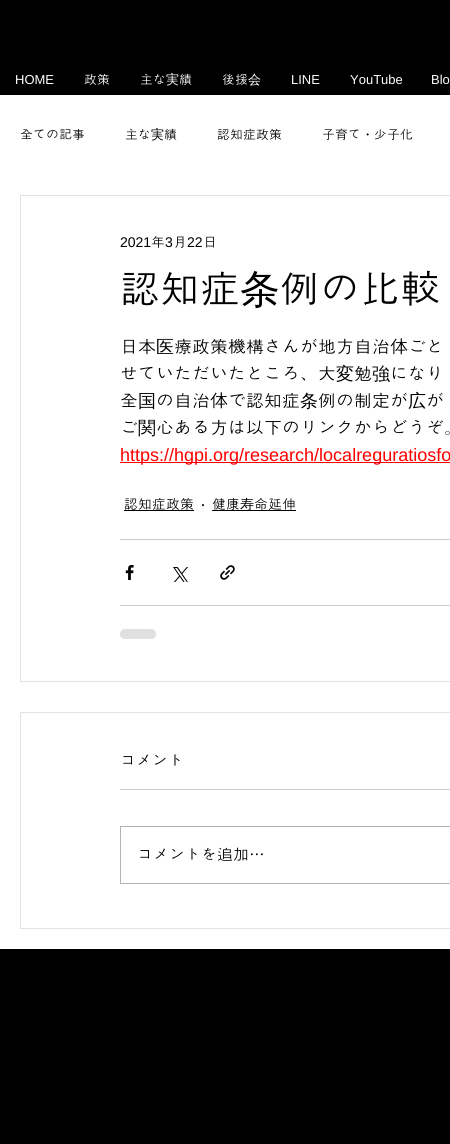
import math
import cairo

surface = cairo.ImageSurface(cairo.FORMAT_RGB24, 450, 1144)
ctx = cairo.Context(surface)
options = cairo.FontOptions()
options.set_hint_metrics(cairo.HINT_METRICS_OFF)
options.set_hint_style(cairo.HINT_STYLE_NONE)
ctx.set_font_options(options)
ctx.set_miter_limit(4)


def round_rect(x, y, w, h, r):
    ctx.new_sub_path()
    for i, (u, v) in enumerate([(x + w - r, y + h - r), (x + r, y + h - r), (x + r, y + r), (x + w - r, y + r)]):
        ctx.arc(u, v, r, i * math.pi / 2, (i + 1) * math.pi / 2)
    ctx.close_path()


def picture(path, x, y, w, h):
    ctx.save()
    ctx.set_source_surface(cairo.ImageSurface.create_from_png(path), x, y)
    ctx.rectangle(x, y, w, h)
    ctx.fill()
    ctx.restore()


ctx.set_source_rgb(0, 0, 0)
ctx.paint()
ctx.select_font_face("Liberation Sans")
ctx.set_font_size(13)
ctx.set_source_rgb(1, 1, 1)
ctx.move_to(15, 84)
ctx.show_text("HOME")
ctx.select_font_face("Dotum")
ctx.move_to(84, 84)
ctx.show_text("政策")
ctx.move_to(140, 84)
ctx.show_text("主な")
ctx.select_font_face("WenQuanYi Zen Hei Medium")
ctx.move_to(166, 84)
ctx.show_text("実")
ctx.select_font_face("Dotum")
ctx.move_to(179, 84)
ctx.show_text("績")
ctx.move_to(222, 84)
ctx.show_text("後援")
ctx.select_font_face("WenQuanYi Zen Hei Medium")
ctx.move_to(248, 84)
ctx.show_text("会")
ctx.select_font_face("Liberation Sans")
ctx.move_to(291, 84)
ctx.show_text("LINE")
ctx.move_to(350, 84)
ctx.show_text("YouTube")
ctx.move_to(431, 84)
ctx.show_text("Blo")
ctx.rectangle(0, 95, 450, 854)
ctx.fill()
ctx.select_font_face("Dotum")
ctx.set_source_rgb(0, 0, 0)
ctx.move_to(20, 139)
ctx.show_text("全ての記事")
ctx.move_to(125, 139)
ctx.show_text("主な")
ctx.select_font_face("WenQuanYi Zen Hei Medium")
ctx.move_to(151, 139)
ctx.show_text("実")
ctx.select_font_face("Dotum")
ctx.move_to(164, 139)
ctx.show_text("績")
ctx.move_to(217, 139)
ctx.show_text("認知症政策")
ctx.move_to(322, 139)
ctx.show_text("子育て")
ctx.select_font_face("WenQuanYi Zen Hei Medium")
ctx.move_to(361, 139)
ctx.show_text("・")
ctx.select_font_face("Dotum")
ctx.move_to(374, 139)
ctx.show_text("少子化")
ctx.rectangle(20.5, 195.5, 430, 486)
ctx.set_source_rgb(0.886, 0.886, 0.886)
ctx.set_line_width(1)
ctx.stroke()
ctx.select_font_face("Liberation Sans")
ctx.set_font_size(14)
ctx.set_source_rgb(0, 0, 0)
ctx.move_to(120, 247)
ctx.show_text("2021")
ctx.select_font_face("Dotum")
ctx.move_to(151, 247)
ctx.show_text("年")
ctx.select_font_face("Liberation Sans")
ctx.move_to(165, 247)
ctx.show_text("3")
ctx.select_font_face("Dotum")
ctx.move_to(173, 247)
ctx.show_text("月")
ctx.select_font_face("Liberation Sans")
ctx.move_to(187, 247)
ctx.show_text("22")
ctx.select_font_face("Dotum")
ctx.move_to(203, 247)
ctx.show_text("日")
ctx.set_font_size(40)
ctx.move_to(120, 303)
ctx.show_text("認知症")
ctx.select_font_face("WenQuanYi Zen Hei Medium")
ctx.move_to(240, 303)
ctx.show_text("条")
ctx.select_font_face("Dotum")
ctx.move_to(280, 303)
ctx.show_text("例の比較")
ctx.set_font_size(18)
ctx.move_to(120, 353)
ctx.show_text("日本")
ctx.select_font_face("WenQuanYi Zen Hei Medium")
ctx.move_to(156, 353)
ctx.show_text("医")
ctx.select_font_face("Dotum")
ctx.move_to(174, 353)
ctx.show_text("療政策機構さんが地方自治体ごと")
ctx.move_to(120, 380)
ctx.show_text("せていただいたところ、大")
ctx.select_font_face("WenQuanYi Zen Hei Medium")
ctx.move_to(336, 380)
ctx.show_text("変")
ctx.select_font_face("Dotum")
ctx.move_to(354, 380)
ctx.show_text("勉")
ctx.select_font_face("WenQuanYi Zen Hei Medium")
ctx.move_to(372, 380)
ctx.show_text("強")
ctx.select_font_face("Dotum")
ctx.move_to(390, 380)
ctx.show_text("になり")
ctx.move_to(120, 407)
ctx.show_text("全")
ctx.select_font_face("WenQuanYi Zen Hei Medium")
ctx.move_to(138, 407)
ctx.show_text("国")
ctx.select_font_face("Dotum")
ctx.move_to(156, 407)
ctx.show_text("の自治体で認知症")
ctx.select_font_face("WenQuanYi Zen Hei Medium")
ctx.move_to(300, 407)
ctx.show_text("条")
ctx.select_font_face("Dotum")
ctx.move_to(318, 407)
ctx.show_text("例の制定が")
ctx.select_font_face("WenQuanYi Zen Hei Medium")
ctx.move_to(408, 407)
ctx.show_text("広")
ctx.select_font_face("Dotum")
ctx.move_to(426, 407)
ctx.show_text("が")
ctx.move_to(120, 434)
ctx.show_text("ご")
ctx.select_font_face("WenQuanYi Zen Hei Medium")
ctx.move_to(138, 434)
ctx.show_text("関")
ctx.select_font_face("Dotum")
ctx.move_to(156, 434)
ctx.show_text("心ある方は以下のリンクからどうぞ。")
ctx.set_source_rgb(1, 0, 0)
ctx.rectangle(120, 462, 330, 1)
ctx.fill()
ctx.select_font_face("Liberation Sans")
ctx.move_to(120, 461)
ctx.show_text("https://hgpi.org/research/localreguratiosfo")
ctx.select_font_face("Dotum")
ctx.set_font_size(14)
ctx.set_source_rgb(0, 0, 0)
ctx.move_to(124, 509)
ctx.show_text("認知症政策")
ctx.rectangle(124, 510, 70, 1)
ctx.fill()
ctx.select_font_face("Liberation Sans")
ctx.set_font_size(18)
ctx.move_to(200, 510)
ctx.show_text("·")
ctx.rectangle(212, 510, 84, 1)
ctx.fill()
ctx.select_font_face("Dotum")
ctx.set_font_size(14)
ctx.move_to(212, 509)
ctx.show_text("健康")
ctx.select_font_face("WenQuanYi Zen Hei Medium")
ctx.move_to(240, 509)
ctx.show_text("寿")
ctx.select_font_face("Dotum")
ctx.move_to(254, 509)
ctx.show_text("命延伸")
ctx.set_source_rgb(0.8, 0.8, 0.8)
ctx.rectangle(120, 539, 330, 1)
ctx.fill()
picture("img1.png", 125, 565, 9, 15)
picture("img2.png", 173, 567, 15, 15)
picture("img3.png", 220, 565, 15, 15)
ctx.rectangle(120, 605, 330, 1)
ctx.fill()
ctx.set_source_rgb(0.878, 0.878, 0.878)
round_rect(120, 629, 36, 10, 5)
ctx.fill()
ctx.rectangle(20.5, 712.5, 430, 216)
ctx.set_source_rgb(0.886, 0.886, 0.886)
ctx.stroke()
ctx.set_font_size(16)
ctx.set_source_rgb(0, 0, 0)
ctx.move_to(120, 766)
ctx.show_text("コメント")
ctx.set_source_rgb(0.8, 0.8, 0.8)
ctx.rectangle(120, 789, 330, 1)
ctx.fill()
ctx.rectangle(120.5, 826.5, 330, 57)
ctx.set_source_rgb(0.702, 0.702, 0.702)
ctx.stroke()
ctx.set_source_rgb(0, 0, 0)
ctx.move_to(137, 860)
ctx.show_text("コメントを追加…")
surface.write_to_png("page.png")
